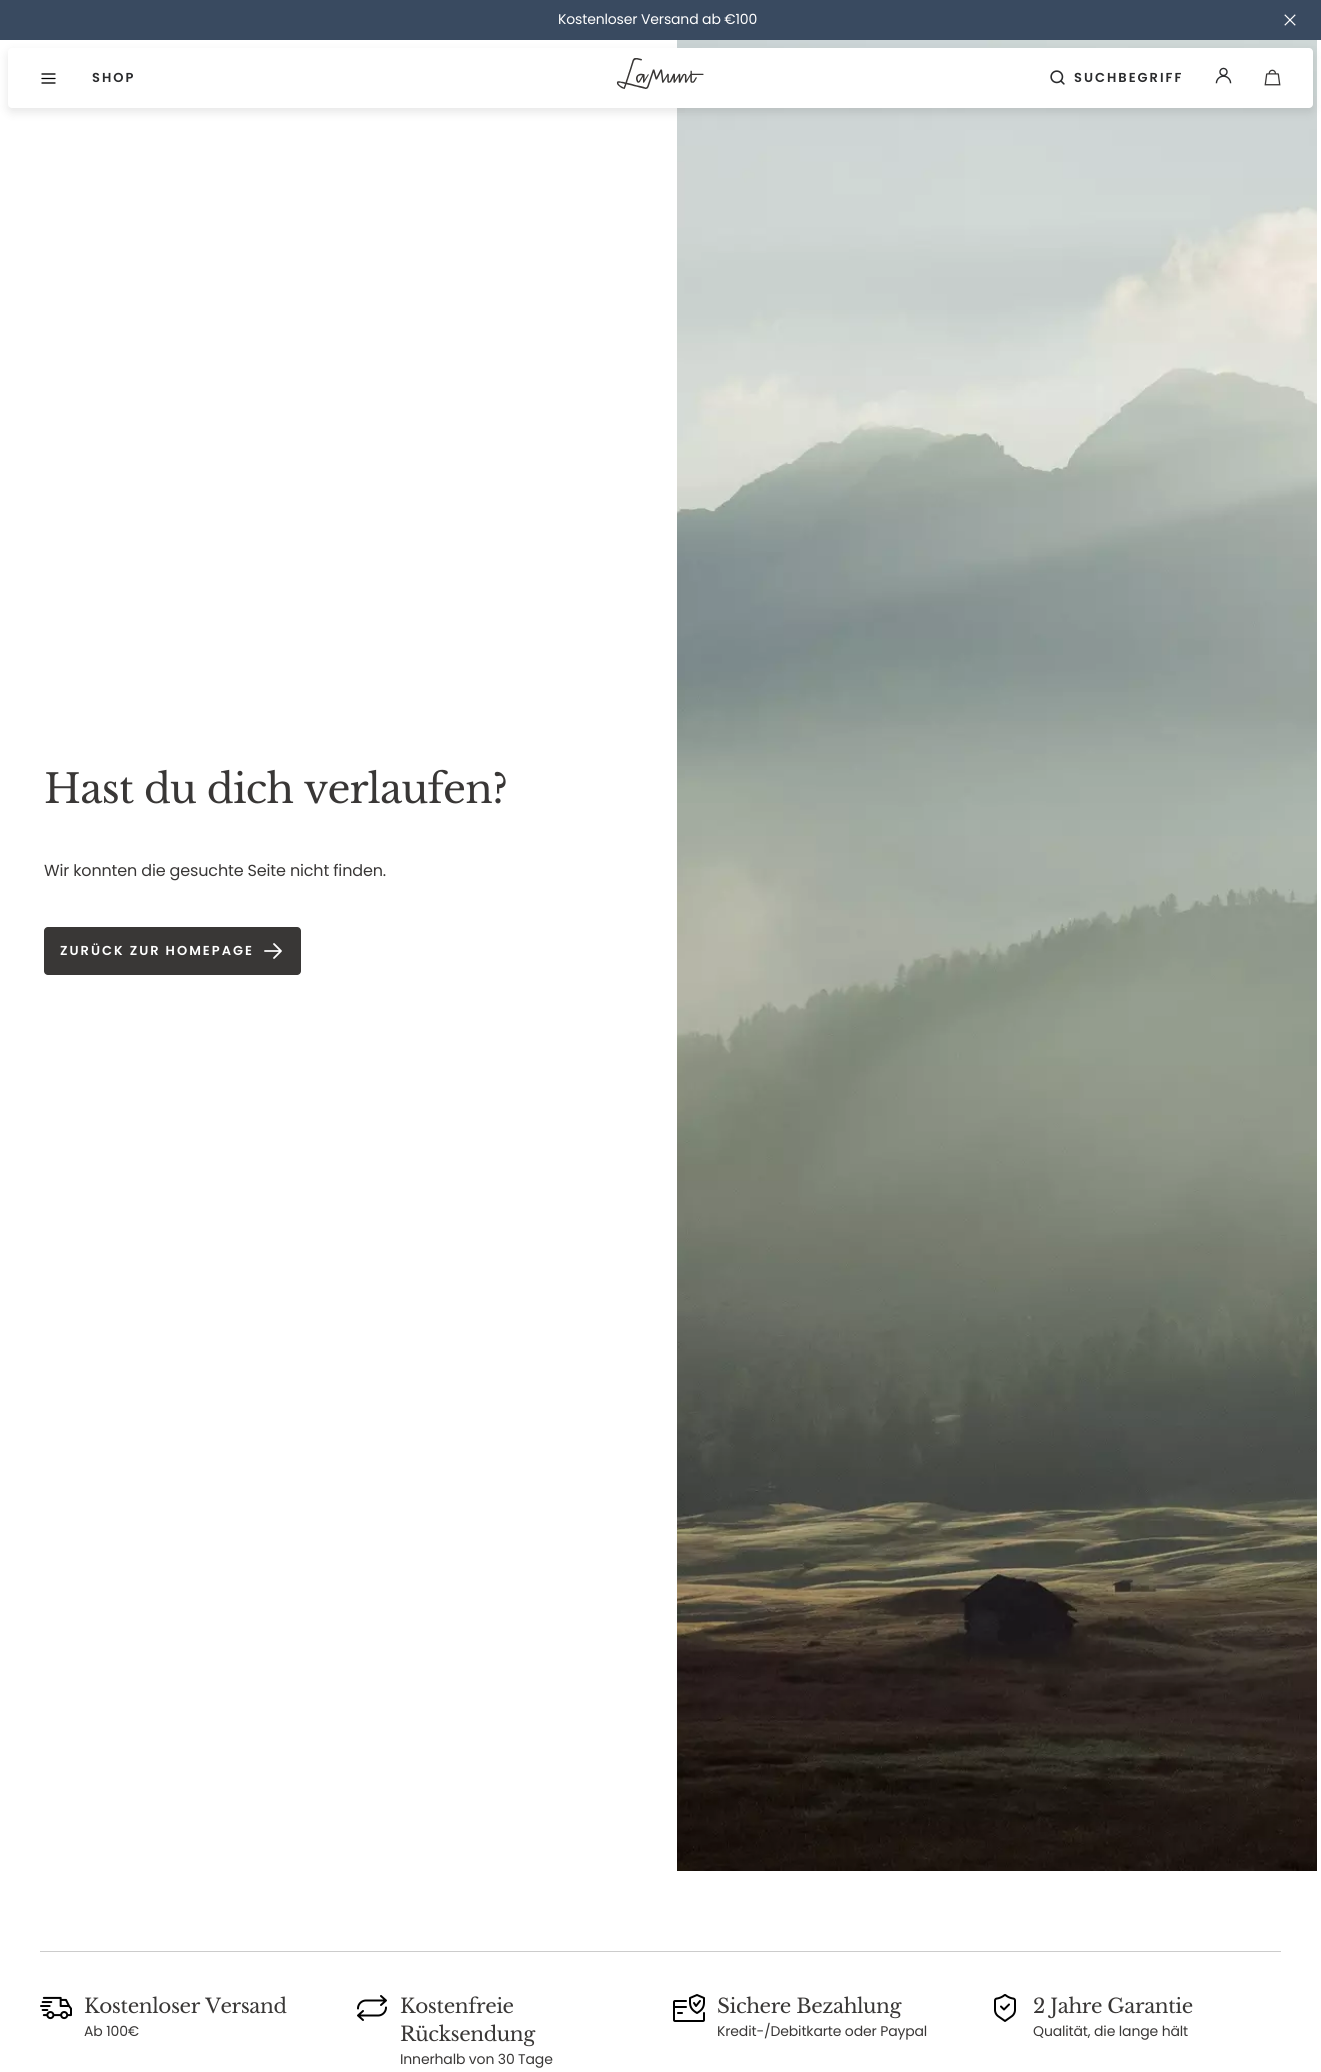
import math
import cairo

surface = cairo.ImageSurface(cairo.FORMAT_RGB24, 1321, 2072)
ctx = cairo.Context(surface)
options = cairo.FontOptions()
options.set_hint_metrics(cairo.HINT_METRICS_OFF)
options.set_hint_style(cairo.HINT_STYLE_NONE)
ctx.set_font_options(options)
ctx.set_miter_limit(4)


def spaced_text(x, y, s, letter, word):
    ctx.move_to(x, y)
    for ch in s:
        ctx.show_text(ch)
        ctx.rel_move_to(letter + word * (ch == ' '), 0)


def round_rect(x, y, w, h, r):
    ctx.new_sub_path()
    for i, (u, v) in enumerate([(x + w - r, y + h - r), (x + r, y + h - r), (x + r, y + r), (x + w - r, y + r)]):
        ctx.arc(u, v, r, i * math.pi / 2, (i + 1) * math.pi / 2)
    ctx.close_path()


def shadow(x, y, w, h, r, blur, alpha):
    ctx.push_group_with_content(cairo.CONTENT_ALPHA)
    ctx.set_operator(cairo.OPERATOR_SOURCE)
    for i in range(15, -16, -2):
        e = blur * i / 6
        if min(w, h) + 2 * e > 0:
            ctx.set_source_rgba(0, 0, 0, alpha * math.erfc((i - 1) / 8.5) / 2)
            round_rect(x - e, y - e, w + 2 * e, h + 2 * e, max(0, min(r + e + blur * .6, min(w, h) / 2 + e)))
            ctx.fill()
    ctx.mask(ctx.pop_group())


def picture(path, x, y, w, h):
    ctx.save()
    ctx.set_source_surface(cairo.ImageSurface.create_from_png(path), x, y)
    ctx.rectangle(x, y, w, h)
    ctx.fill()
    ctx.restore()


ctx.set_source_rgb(1, 1, 1)
ctx.paint()
ctx.set_source_rgb(0.224, 0.29, 0.376)
ctx.rectangle(0, 0, 1321, 40)
ctx.fill()
ctx.select_font_face("Poppins")
ctx.set_font_size(14)
ctx.set_source_rgb(1, 1, 1)
spaced_text(558, 24, "Kostenloser Versand ab €100", -0.15, 0)
picture("img1.png", 1284, 14, 12, 12)
picture("img6.png", 677, 40, 640, 1831)
ctx.set_source_rgb(0, 0, 0)
shadow(8, 52, 1305, 60, 4, 5, 0.1)
ctx.set_source_rgb(1, 1, 1)
round_rect(8, 48, 1305, 60, 4)
ctx.fill()
ctx.new_path()
ctx.move_to(42, 78.5)
ctx.line_to(55, 78.5)
ctx.move_to(42, 74)
ctx.line_to(55, 74)
ctx.move_to(42, 83)
ctx.line_to(55, 83)
ctx.set_source_rgb(0, 0, 0)
ctx.set_line_width(1.3)
ctx.set_line_cap(cairo.LINE_CAP_ROUND)
ctx.set_line_join(cairo.LINE_JOIN_ROUND)
ctx.stroke()
ctx.select_font_face("Poppins SemiBold")
ctx.set_font_size(13)
ctx.set_source_rgb(0.165, 0.169, 0.176)
spaced_text(92, 82, "SHOP", 2, 0)
picture("img2.png", 616, 58, 88, 31)
picture("img3.png", 1050, 70, 15, 15)
spaced_text(1074, 82, "SUCHBEGRIFF", 2, 0)
picture("img4.png", 1215, 67, 17, 17)
picture("img5.png", 1264, 69, 17, 17)
ctx.select_font_face("Libre Baskerville")
ctx.set_font_size(40)
ctx.set_source_rgb(0.224, 0.216, 0.212)
spaced_text(44, 803, "Hast du dich verlaufen?", -0.8, 0)
ctx.select_font_face("Poppins")
ctx.set_font_size(16)
spaced_text(44, 876, "Wir konnten die gesuchte Seite nicht finden.", -0.15, 0)
round_rect(44, 927, 257, 48, 4)
ctx.fill()
ctx.select_font_face("Poppins SemiBold")
ctx.set_font_size(13)
ctx.set_source_rgb(1, 1, 1)
spaced_text(60, 955, "ZURÜCK ZUR HOMEPAGE", 2, 0)
ctx.new_path()
ctx.move_to(265, 951)
ctx.line_to(281, 951)
ctx.move_to(281, 951)
ctx.line_to(274, 944)
ctx.move_to(281, 951)
ctx.line_to(274, 958)
ctx.set_line_width(1.8)
ctx.stroke()
ctx.set_source_rgb(0.8, 0.8, 0.8)
ctx.rectangle(40, 1951, 1241, 1)
ctx.fill()
picture("img7.png", 40, 1996, 32, 24)
ctx.select_font_face("Libre Baskerville")
ctx.set_font_size(20)
ctx.set_source_rgb(0.224, 0.216, 0.212)
spaced_text(84, 2013, "Kostenloser Versand", -0.4, 0)
ctx.select_font_face("Poppins")
ctx.set_font_size(14)
spaced_text(84, 2036, "Ab 100€", -0.15, 0)
picture("img8.png", 357, 1995, 30, 26)
ctx.select_font_face("Libre Baskerville")
ctx.set_font_size(20)
spaced_text(400, 2013, "Kostenfreie", -0.4, 0)
spaced_text(400, 2041, "Rücksendung", -0.4, 0)
ctx.select_font_face("Poppins")
ctx.set_font_size(14)
spaced_text(400, 2064, "Innerhalb von 30 Tage", -0.15, 0)
picture("img9.png", 673, 1994, 32, 28)
ctx.select_font_face("Libre Baskerville")
ctx.set_font_size(20)
spaced_text(717, 2013, "Sichere Bezahlung", -0.4, 0)
ctx.select_font_face("Poppins")
ctx.set_font_size(14)
spaced_text(717, 2036, "Kredit-/Debitkarte oder Paypal", -0.15, 0)
picture("img10.png", 994, 1994, 22, 28)
ctx.select_font_face("Libre Baskerville")
ctx.set_font_size(20)
spaced_text(1033, 2013, "2 Jahre Garantie", -0.4, 0)
ctx.select_font_face("Poppins")
ctx.set_font_size(14)
spaced_text(1033, 2036, "Qualität, die lange hält", -0.15, 0)
surface.write_to_png("page.png")
